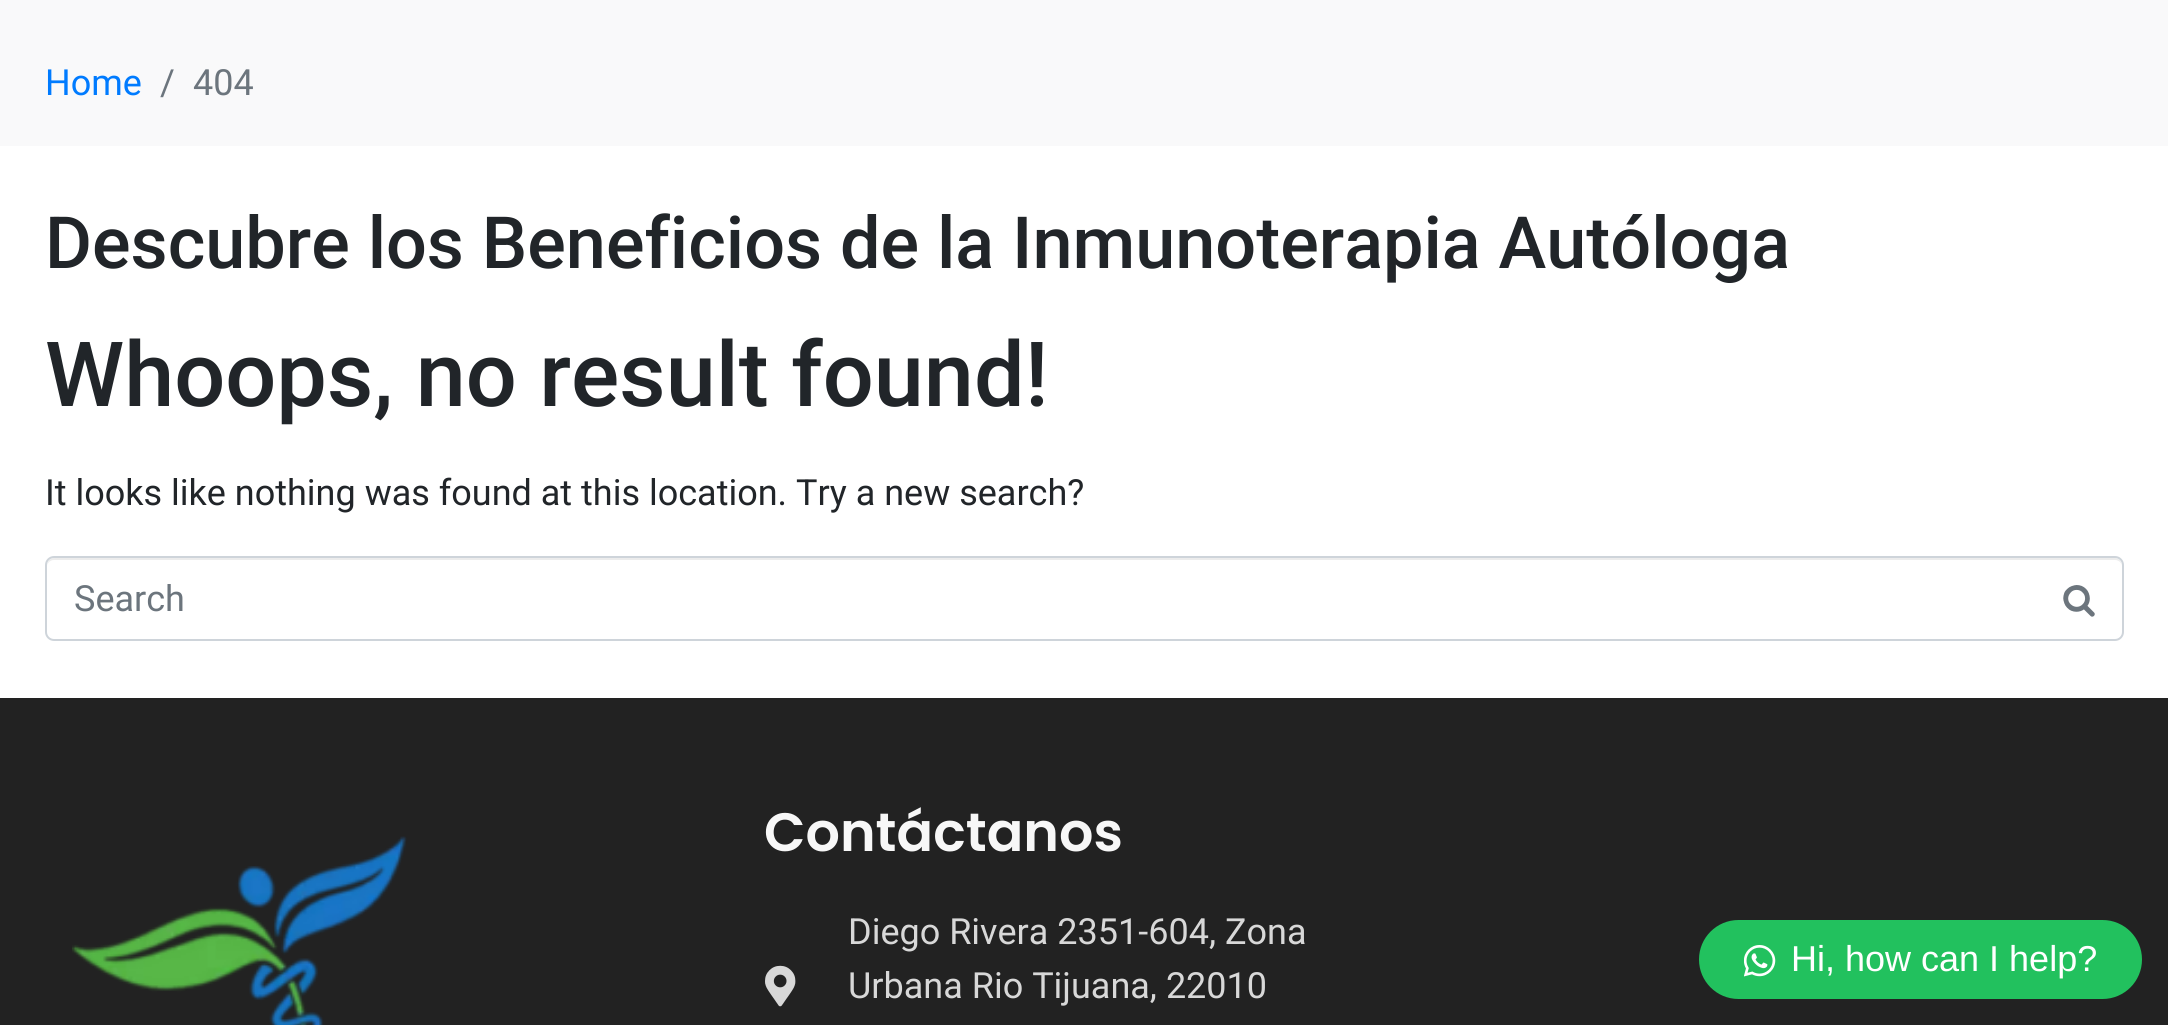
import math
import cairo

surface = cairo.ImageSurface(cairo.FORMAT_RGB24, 2168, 1025)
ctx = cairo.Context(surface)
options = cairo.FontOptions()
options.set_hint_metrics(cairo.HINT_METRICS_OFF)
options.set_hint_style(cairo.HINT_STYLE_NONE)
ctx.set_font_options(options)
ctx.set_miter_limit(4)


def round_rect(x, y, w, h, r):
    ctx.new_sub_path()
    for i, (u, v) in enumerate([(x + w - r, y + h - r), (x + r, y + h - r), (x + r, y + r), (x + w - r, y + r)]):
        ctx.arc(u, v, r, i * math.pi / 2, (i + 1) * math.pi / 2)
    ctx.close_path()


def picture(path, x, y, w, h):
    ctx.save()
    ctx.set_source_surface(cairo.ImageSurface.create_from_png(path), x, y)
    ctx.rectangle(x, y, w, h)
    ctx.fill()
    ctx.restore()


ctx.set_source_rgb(1, 1, 1)
ctx.paint()
ctx.set_source_rgb(0.973, 0.976, 0.98)
ctx.rectangle(0, 0, 2168, 146)
ctx.fill()
ctx.select_font_face("Roboto")
ctx.set_font_size(36)
ctx.set_source_rgb(0, 0.482, 1)
ctx.move_to(45, 95)
ctx.show_text("Home")
ctx.set_source_rgb(0.424, 0.459, 0.49)
ctx.move_to(160, 95)
ctx.show_text("/")
ctx.move_to(193, 95)
ctx.show_text("404")
ctx.select_font_face("Roboto Medium")
ctx.set_font_size(72)
ctx.set_source_rgb(0.129, 0.145, 0.161)
ctx.move_to(45, 268)
ctx.show_text("Descubre los Beneficios de la Inmunoterapia Autóloga")
ctx.set_font_size(90)
ctx.move_to(45, 406)
ctx.show_text("Whoops, no result found!")
ctx.select_font_face("Roboto")
ctx.set_font_size(36)
ctx.move_to(45, 505)
ctx.show_text("It looks like nothing was found at this location. Try a new search?")
ctx.set_source_rgb(0.925, 0.925, 0.925)
ctx.new_path()
ctx.move_to(54, 560)
ctx.line_to(2115, 560)
ctx.curve_to(2119, 560, 2122, 563, 2122, 567)
ctx.curve_to(2122, 563, 2120, 558, 2115, 558)
ctx.line_to(54, 558)
ctx.curve_to(49, 558, 47, 563, 47, 567)
ctx.curve_to(47, 563, 50, 560, 54, 560)
ctx.close_path()
ctx.fill()
round_rect(46, 557, 2077, 83, 8)
ctx.set_source_rgb(0.808, 0.831, 0.855)
ctx.stroke()
ctx.set_source_rgb(0.424, 0.459, 0.49)
ctx.move_to(74, 611)
ctx.show_text("Search")
picture("img1.png", 2063, 585, 32, 32)
ctx.set_source_rgb(0.133, 0.133, 0.133)
ctx.rectangle(0, 698, 2168, 327)
ctx.fill()
picture("img2.png", 72, 836, 335, 189)
ctx.select_font_face("Poppins SemiBold")
ctx.set_font_size(54)
ctx.set_source_rgb(0.965, 0.965, 0.965)
ctx.move_to(764, 851)
ctx.show_text("Contáctanos")
picture("img3.png", 765, 965, 31, 42)
ctx.select_font_face("Roboto")
ctx.set_font_size(36)
ctx.set_source_rgb(0.847, 0.847, 0.847)
ctx.move_to(848, 944)
ctx.show_text("Diego Rivera 2351-604, Zona")
ctx.move_to(848, 998)
ctx.show_text("Urbana Rio Tijuana, 22010")
ctx.set_source_rgb(0.133, 0.757, 0.369)
round_rect(1699, 920, 443, 79, 39.5)
ctx.fill()
picture("img4.png", 1744, 945, 32, 32)
ctx.select_font_face("Liberation Sans")
ctx.set_source_rgb(1, 1, 1)
ctx.move_to(1791, 971)
ctx.show_text("Hi, how can I help?")
surface.write_to_png("page.png")
